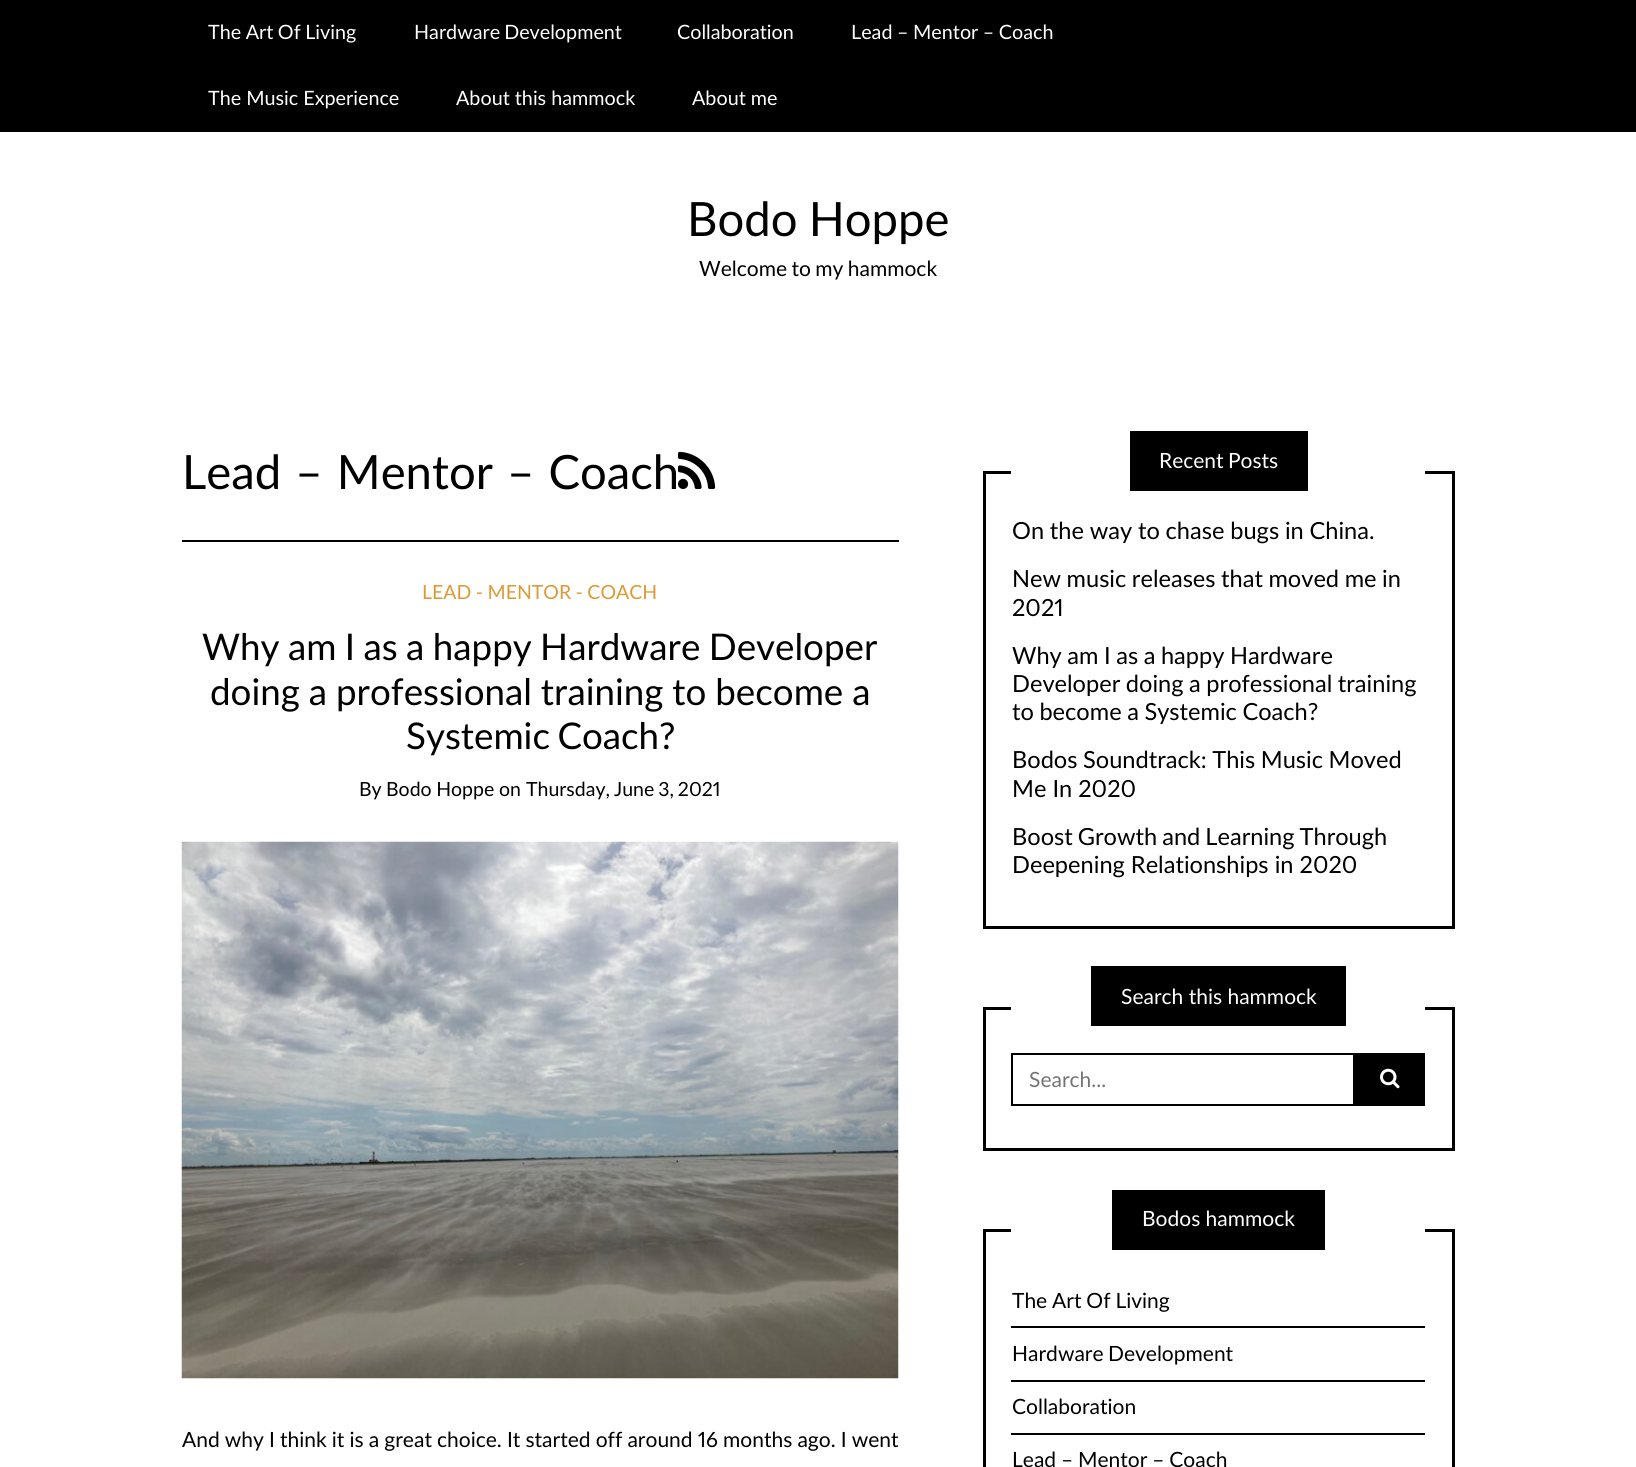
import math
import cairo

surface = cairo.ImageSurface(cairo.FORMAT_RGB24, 1636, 1467)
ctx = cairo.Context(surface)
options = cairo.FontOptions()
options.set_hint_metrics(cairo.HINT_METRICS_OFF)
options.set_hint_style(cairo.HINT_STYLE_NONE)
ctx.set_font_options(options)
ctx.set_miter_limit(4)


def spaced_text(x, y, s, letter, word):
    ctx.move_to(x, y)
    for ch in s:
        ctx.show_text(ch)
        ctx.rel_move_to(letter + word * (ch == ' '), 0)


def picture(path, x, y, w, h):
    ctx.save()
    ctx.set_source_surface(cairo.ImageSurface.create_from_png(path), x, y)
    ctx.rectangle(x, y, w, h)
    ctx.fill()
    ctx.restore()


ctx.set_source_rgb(1, 1, 1)
ctx.paint()
ctx.set_source_rgb(0, 0, 0)
ctx.rectangle(0, 0, 1636, 132)
ctx.fill()
ctx.select_font_face("Lato")
ctx.set_font_size(19.75)
ctx.set_source_rgb(1, 1, 1)
spaced_text(208, 39, "The Art Of Living", 0, -0.5)
spaced_text(414, 39, "Hardware Development", 0, -1)
ctx.move_to(677, 39)
ctx.show_text("Collaboration")
spaced_text(851, 39, "Lead – Mentor – Coach", 0, -0.5)
ctx.move_to(208, 105)
ctx.show_text("The Music Experience")
ctx.move_to(456, 105)
ctx.show_text("About this hammock")
ctx.move_to(692, 105)
ctx.show_text("About me")
ctx.set_font_size(47.25)
ctx.set_source_rgb(0, 0, 0)
spaced_text(687, 236, "Bodo Hoppe", 0, -1)
ctx.set_font_size(21)
spaced_text(699, 276, "Welcome to my hammock", 0, -1)
ctx.rectangle(182, 540, 717, 2)
ctx.fill()
ctx.set_font_size(47.25)
spaced_text(182, 489, "Lead – Mentor – Coach", 0, 2)
picture("img1.png", 678, 451, 38, 38)
ctx.set_font_size(19.5)
ctx.set_source_rgb(0.867, 0.6, 0.2)
spaced_text(422, 599, "LEAD - MENTOR - COACH", 0, -0.5)
ctx.set_font_size(36.75)
ctx.set_source_rgb(0, 0, 0)
spaced_text(202, 660, "Why am I as a happy Hardware Developer", 0, -1)
spaced_text(210, 705, "doing a professional training to become a", 0, -0.5)
spaced_text(406, 749, "Systemic Coach?", 0, -2)
ctx.set_font_size(19.5)
ctx.move_to(359, 796)
ctx.show_text("By")
spaced_text(386, 796, "Bodo Hoppe", 0, -0.5)
ctx.move_to(499, 796)
ctx.show_text("on")
ctx.select_font_face("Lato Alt")
spaced_text(526, 796, "Thursday, June 3, 2021", 0, -1)
picture("img2.png", 181, 841, 718, 538)
ctx.set_font_size(21)
spaced_text(182, 1447, "And why I think it is a great choice. It started off around 16 months ago. I went", 0, -0.25)
ctx.rectangle(984.5, 472.5, 469, 455)
ctx.set_line_width(3)
ctx.stroke()
ctx.set_source_rgb(1, 1, 1)
ctx.rectangle(1011, 471, 414, 3)
ctx.fill()
ctx.set_source_rgb(0, 0, 0)
ctx.rectangle(1130, 431, 178, 60)
ctx.fill()
ctx.select_font_face("Lato")
ctx.set_source_rgb(1, 1, 1)
spaced_text(1159, 468, "Recent Posts", 0, -1)
ctx.set_font_size(23.6)
ctx.set_source_rgb(0, 0, 0)
spaced_text(1012, 539, "On the way to chase bugs in China.", 0, -0.25)
spaced_text(1012, 587, "New music releases that moved me in", 0, -0.5)
ctx.select_font_face("Lato Alt")
ctx.move_to(1012, 616)
ctx.show_text("2021")
ctx.select_font_face("Lato")
spaced_text(1012, 664, "Why am I as a happy Hardware", 0, -0.5)
spaced_text(1012, 692, "Developer doing a professional training", 0, -0.5)
spaced_text(1012, 720, "to become a Systemic Coach?", 0, -0.5)
spaced_text(1012, 768, "Bodos Soundtrack: This Music Moved", 0, -0.5)
ctx.select_font_face("Lato Alt")
ctx.move_to(1012, 797)
ctx.show_text("Me In 2020")
ctx.select_font_face("Lato")
spaced_text(1012, 845, "Boost Growth and Learning Through", 0, -1)
ctx.select_font_face("Lato Alt")
ctx.move_to(1012, 873)
ctx.show_text("Deepening Relationships in 2020")
ctx.rectangle(984.5, 1008.5, 469, 141)
ctx.stroke()
ctx.set_source_rgb(1, 1, 1)
ctx.rectangle(1011, 1007, 414, 3)
ctx.fill()
ctx.set_source_rgb(0, 0, 0)
ctx.rectangle(1091, 966, 255, 60)
ctx.fill()
ctx.select_font_face("Lato")
ctx.set_font_size(21)
ctx.set_source_rgb(1, 1, 1)
ctx.move_to(1121, 1004)
ctx.show_text("Search this hammock")
ctx.rectangle(1012, 1054, 412, 51)
ctx.set_source_rgb(0, 0, 0)
ctx.set_line_width(2)
ctx.stroke()
ctx.set_source_rgb(0.459, 0.459, 0.459)
ctx.move_to(1029, 1087)
ctx.show_text("Search...")
ctx.set_source_rgb(0, 0, 0)
ctx.rectangle(1353, 1055, 70, 49)
ctx.fill()
picture("img3.png", 1380, 1068, 20, 21)
ctx.rectangle(984.5, 1230.5, 469, 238)
ctx.set_line_width(3)
ctx.stroke()
ctx.set_source_rgb(1, 1, 1)
ctx.rectangle(1011, 1229, 414, 3)
ctx.fill()
ctx.set_source_rgb(0, 0, 0)
ctx.rectangle(1112, 1190, 213, 60)
ctx.fill()
ctx.set_source_rgb(1, 1, 1)
ctx.move_to(1142, 1226)
ctx.show_text("Bodos hammock")
ctx.set_source_rgb(0, 0, 0)
ctx.rectangle(1011, 1326, 414, 2)
ctx.fill()
spaced_text(1012, 1308, "The Art Of Living", 0, -0.5)
ctx.rectangle(1011, 1380, 414, 2)
ctx.fill()
spaced_text(1012, 1361, "Hardware Development", 0, -1)
ctx.rectangle(1011, 1433, 414, 2)
ctx.fill()
ctx.move_to(1012, 1414)
ctx.show_text("Collaboration")
spaced_text(1012, 1467, "Lead – Mentor – Coach", 0, -0.5)
surface.write_to_png("page.png")
